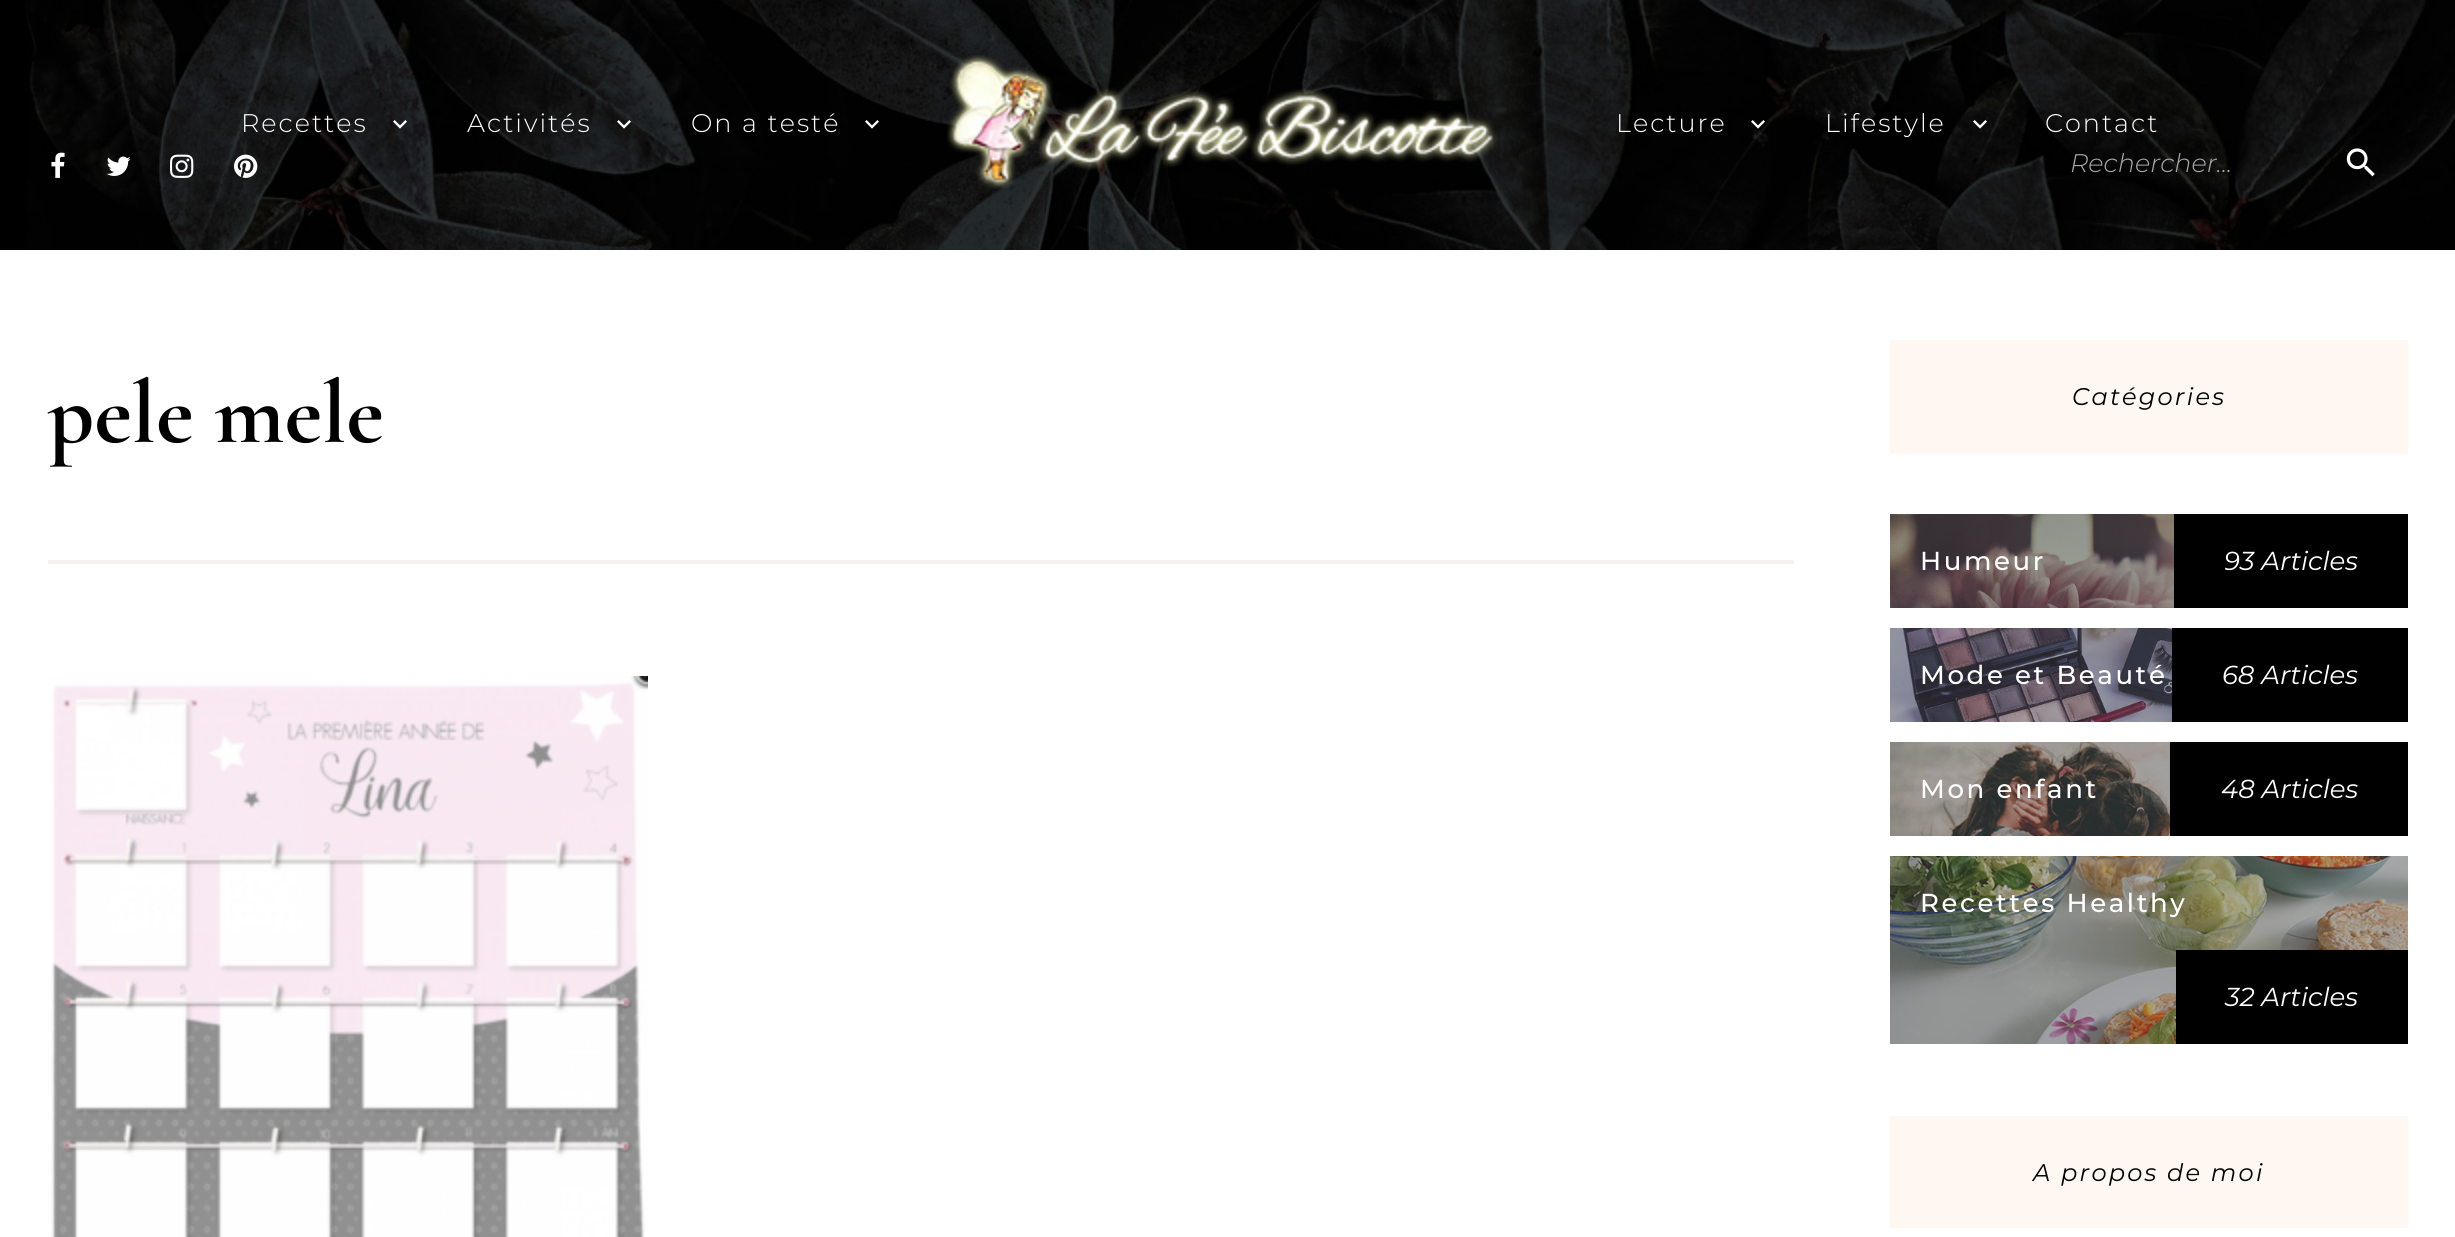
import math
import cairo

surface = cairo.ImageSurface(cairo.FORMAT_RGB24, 2455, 1237)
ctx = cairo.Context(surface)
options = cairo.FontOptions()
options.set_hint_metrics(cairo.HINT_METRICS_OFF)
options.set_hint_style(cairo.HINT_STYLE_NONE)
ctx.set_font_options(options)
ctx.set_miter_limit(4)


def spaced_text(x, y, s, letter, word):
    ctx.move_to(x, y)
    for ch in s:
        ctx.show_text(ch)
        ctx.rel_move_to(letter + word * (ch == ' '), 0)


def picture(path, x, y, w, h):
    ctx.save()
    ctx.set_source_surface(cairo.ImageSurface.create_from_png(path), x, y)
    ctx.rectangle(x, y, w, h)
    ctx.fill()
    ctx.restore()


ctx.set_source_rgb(1, 1, 1)
ctx.paint()
ctx.set_source_rgb(0, 0, 0)
ctx.rectangle(0, 0, 26, 250)
ctx.fill()
picture("img1.png", 26, 0, 2429, 250)
ctx.select_font_face("Montserrat Light")
ctx.set_font_size(25.5)
ctx.set_source_rgb(1, 1, 1)
spaced_text(241, 132, "Recettes", 2, 0)
picture("img2.png", 393, 120, 14, 9)
spaced_text(467, 132, "Activités", 2, 0)
picture("img3.png", 617, 120, 14, 9)
spaced_text(691, 132, "On a testé", 2, 0)
picture("img4.png", 865, 120, 14, 9)
picture("img5.png", 947, 55, 551, 134)
spaced_text(1616, 132, "Lecture", 2, 0)
picture("img6.png", 1751, 120, 14, 9)
spaced_text(1825, 132, "Lifestyle", 2, 0)
picture("img7.png", 1973, 120, 14, 9)
spaced_text(2045, 132, "Contact", 2, 0)
picture("img8.png", 51, 152, 14, 26)
picture("img9.png", 106, 156, 25, 20)
picture("img10.png", 170, 154, 24, 24)
picture("img11.png", 234, 154, 24, 24)
ctx.select_font_face("Montserrat Light", cairo.FONT_SLANT_ITALIC)
ctx.set_source_rgb(0.663, 0.663, 0.663)
ctx.move_to(2070, 172)
ctx.show_text("Rechercher...")
picture("img12.png", 2346, 148, 29, 29)
ctx.select_font_face("Cormorant Garamond", cairo.FONT_SLANT_NORMAL, cairo.FONT_WEIGHT_BOLD)
ctx.set_font_size(90)
ctx.set_source_rgb(0, 0, 0)
ctx.move_to(48, 442)
ctx.show_text("pele mele")
ctx.set_source_rgb(0.953, 0.949, 0.945)
ctx.rectangle(48, 560, 1746, 4)
ctx.fill()
picture("img13.png", 51, 676, 597, 561)
ctx.set_source_rgb(1, 0.965, 0.945)
ctx.rectangle(1890, 340, 518, 114)
ctx.fill()
ctx.select_font_face("Montserrat", cairo.FONT_SLANT_ITALIC)
ctx.set_font_size(24.1)
ctx.set_source_rgb(0, 0, 0)
spaced_text(2072, 405, "Catégories", 2.2, 0)
ctx.set_source_rgb(0.271, 0.271, 0.271)
ctx.rectangle(1890, 514, 284, 94)
ctx.fill()
picture("img14.png", 1890, 514, 284, 94)
ctx.set_source_rgb(0, 0, 0)
ctx.rectangle(2174, 514, 234, 94)
ctx.fill()
ctx.set_font_size(26)
ctx.set_source_rgb(1, 1, 1)
ctx.move_to(2224, 570)
ctx.show_text("93 Articles")
ctx.select_font_face("Montserrat Medium")
spaced_text(1920, 570, "Humeur", 2.6, 0)
ctx.set_source_rgb(0.271, 0.271, 0.271)
ctx.rectangle(1890, 628, 282, 94)
ctx.fill()
picture("img15.png", 1890, 628, 282, 94)
ctx.set_source_rgb(1, 1, 1)
spaced_text(1920, 684, "Mode et Beauté", 2.6, 0)
ctx.set_source_rgb(0, 0, 0)
ctx.rectangle(2172, 628, 236, 94)
ctx.fill()
ctx.select_font_face("Montserrat", cairo.FONT_SLANT_ITALIC)
ctx.set_source_rgb(1, 1, 1)
ctx.move_to(2222, 684)
ctx.show_text("68 Articles")
ctx.set_source_rgb(0.271, 0.271, 0.271)
ctx.rectangle(1890, 742, 280, 94)
ctx.fill()
picture("img16.png", 1890, 742, 280, 94)
ctx.select_font_face("Montserrat Medium")
ctx.set_source_rgb(1, 1, 1)
spaced_text(1920, 798, "Mon enfant", 2.6, 0)
ctx.set_source_rgb(0, 0, 0)
ctx.rectangle(2170, 742, 238, 94)
ctx.fill()
ctx.select_font_face("Montserrat", cairo.FONT_SLANT_ITALIC)
ctx.set_source_rgb(1, 1, 1)
ctx.move_to(2221, 798)
ctx.show_text("48 Articles")
ctx.set_source_rgb(0.271, 0.271, 0.271)
ctx.rectangle(1890, 856, 518, 188)
ctx.fill()
picture("img17.png", 1890, 856, 518, 188)
ctx.select_font_face("Montserrat Medium")
ctx.set_source_rgb(1, 1, 1)
spaced_text(1920, 912, "Recettes Healthy", 2.6, 0)
ctx.set_source_rgb(0, 0, 0)
ctx.rectangle(2176, 950, 232, 94)
ctx.fill()
ctx.select_font_face("Montserrat", cairo.FONT_SLANT_ITALIC)
ctx.set_source_rgb(1, 1, 1)
ctx.move_to(2225, 1006)
ctx.show_text("32 Articles")
ctx.set_source_rgb(1, 0.965, 0.945)
ctx.rectangle(1890, 1116, 518, 112)
ctx.fill()
ctx.set_font_size(24.1)
ctx.set_source_rgb(0, 0, 0)
spaced_text(2033, 1181, "A propos de moi", 2.2, 0)
surface.write_to_png("page.png")
